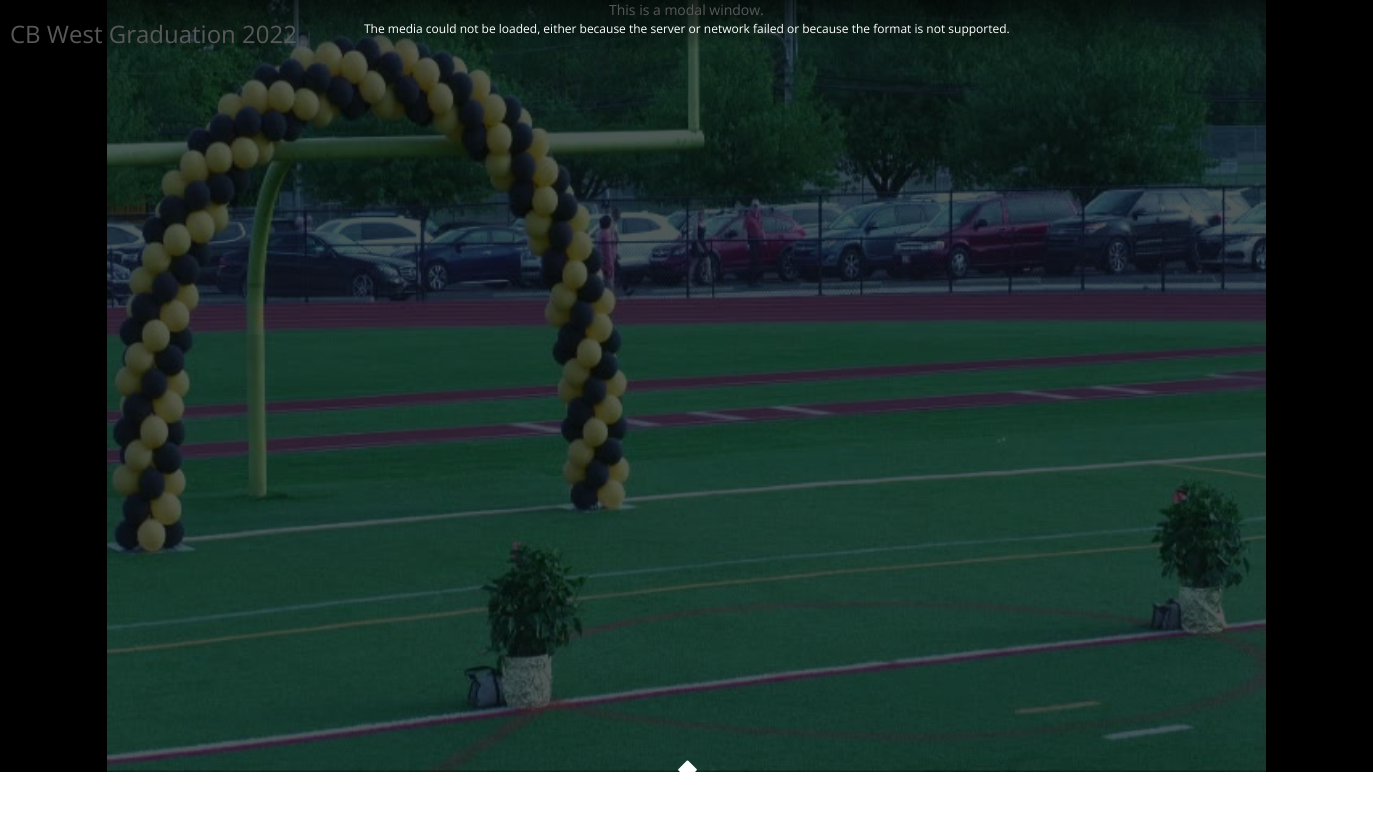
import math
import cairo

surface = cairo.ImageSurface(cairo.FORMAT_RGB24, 1373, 832)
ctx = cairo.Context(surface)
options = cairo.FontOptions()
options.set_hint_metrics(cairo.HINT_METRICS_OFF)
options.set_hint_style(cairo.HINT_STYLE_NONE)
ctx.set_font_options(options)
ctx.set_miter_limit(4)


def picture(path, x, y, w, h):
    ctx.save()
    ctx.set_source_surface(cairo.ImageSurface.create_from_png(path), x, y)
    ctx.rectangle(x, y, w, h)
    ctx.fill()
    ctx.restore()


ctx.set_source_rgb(1, 1, 1)
ctx.paint()
ctx.set_source_rgb(0, 0, 0)
ctx.rectangle(0, 0, 1373, 772)
ctx.fill()
picture("img1.png", 107, 0, 1159, 772)
gradient = cairo.LinearGradient(687, 52, 687, 0)
gradient.add_color_stop_rgba(0, 0, 0, 0, 0)
gradient.add_color_stop_rgba(1, 0, 0, 0, 0.6)
ctx.set_source(gradient)
ctx.rectangle(107, 0, 1159, 49)
ctx.fill()
ctx.select_font_face("Open Sans")
ctx.set_font_size(24)
ctx.set_source_rgb(0.341, 0.341, 0.341)
ctx.move_to(10, 43)
ctx.show_text("CB West Graduation 2022")
ctx.set_font_size(14)
ctx.move_to(609, 15)
ctx.show_text("This is a modal window.")
ctx.save()
ctx.rectangle(0, 0, 1373, 772)
ctx.clip()
ctx.set_source_rgb(1, 1, 1)
ctx.new_path()
ctx.move_to(688, 760.5)
ctx.line_to(696.5, 769)
ctx.curve_to(697, 769.5, 697, 770, 696.5, 770.5)
ctx.line_to(688, 779)
ctx.curve_to(688, 779.5, 687, 779.5, 687, 779)
ctx.line_to(678.5, 770.5)
ctx.curve_to(678, 770, 678, 769.5, 678.5, 769)
ctx.line_to(687, 760.5)
ctx.curve_to(687, 760.5, 688, 760.5, 688, 760.5)
ctx.close_path()
ctx.fill()
ctx.restore()
ctx.set_font_size(12)
ctx.set_source_rgb(1, 1, 1)
ctx.move_to(364, 33)
ctx.show_text("The media could not be loaded, either because the server or network failed or because the format is not supported.")
surface.write_to_png("page.png")
